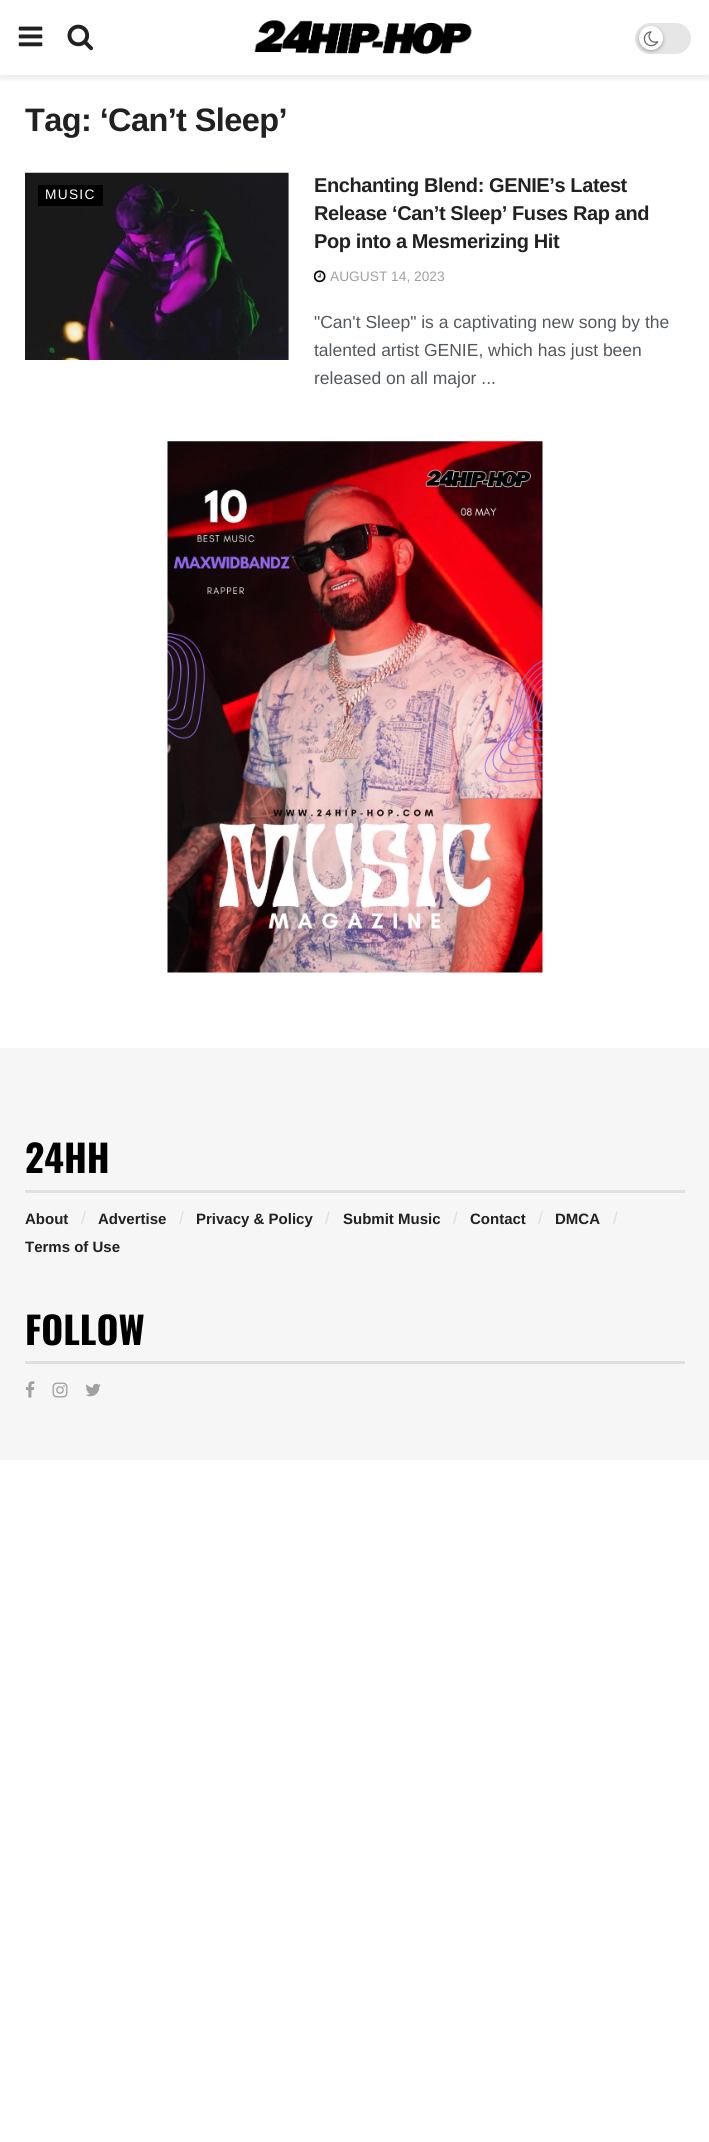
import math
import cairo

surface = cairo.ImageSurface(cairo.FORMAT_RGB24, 709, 2142)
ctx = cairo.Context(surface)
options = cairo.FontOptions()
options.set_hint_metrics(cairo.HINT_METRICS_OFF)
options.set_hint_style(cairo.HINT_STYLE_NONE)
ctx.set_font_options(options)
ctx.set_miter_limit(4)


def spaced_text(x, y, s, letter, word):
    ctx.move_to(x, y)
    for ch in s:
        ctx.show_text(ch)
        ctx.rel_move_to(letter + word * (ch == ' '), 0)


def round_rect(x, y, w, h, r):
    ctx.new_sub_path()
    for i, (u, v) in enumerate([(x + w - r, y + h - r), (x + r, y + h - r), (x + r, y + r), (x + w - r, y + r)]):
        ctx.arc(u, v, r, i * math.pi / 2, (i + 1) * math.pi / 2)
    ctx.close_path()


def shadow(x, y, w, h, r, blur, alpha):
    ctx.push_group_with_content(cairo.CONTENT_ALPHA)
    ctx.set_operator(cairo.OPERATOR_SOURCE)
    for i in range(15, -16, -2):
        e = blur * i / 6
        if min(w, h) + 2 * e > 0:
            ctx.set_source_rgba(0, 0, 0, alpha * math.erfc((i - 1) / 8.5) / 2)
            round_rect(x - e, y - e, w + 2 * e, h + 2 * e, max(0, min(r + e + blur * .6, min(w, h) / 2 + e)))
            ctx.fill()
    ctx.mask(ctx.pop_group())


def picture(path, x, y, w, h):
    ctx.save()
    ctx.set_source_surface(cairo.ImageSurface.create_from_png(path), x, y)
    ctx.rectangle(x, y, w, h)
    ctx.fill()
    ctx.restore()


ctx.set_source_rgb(1, 1, 1)
ctx.paint()
ctx.save()
ctx.rectangle(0, 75, 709, 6)
ctx.clip()
ctx.set_source_rgb(0, 0, 0)
shadow(0, 3, 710, 75, 0, 4, 0.1)
ctx.restore()
picture("img1.png", 18, 26, 25, 21)
picture("img2.png", 67, 24, 26, 27)
picture("img3.png", 254, 20, 218, 34)
ctx.set_source_rgb(0.902, 0.902, 0.902)
round_rect(635, 23, 56, 31, 15.5)
ctx.fill()
ctx.set_source_rgb(0, 0, 0)
shadow(639, 28, 24, 23, 11.5, 2, 0.3)
ctx.set_source_rgb(1, 1, 1)
ctx.arc(651, 38, 12, 0, 2 * math.pi)
ctx.fill()
picture("img4.png", 643, 31, 16, 16)
ctx.select_font_face("Liberation Sans", cairo.FONT_SLANT_NORMAL, cairo.FONT_WEIGHT_BOLD)
ctx.set_font_size(32.5)
ctx.set_source_rgb(0.129, 0.129, 0.129)
spaced_text(25, 131, "Tag: ‘Can’t Sleep’", -0.6, 0)
ctx.set_source_rgb(0.969, 0.969, 0.969)
ctx.rectangle(288, 173, 1, 187)
ctx.fill()
picture("img5.png", 25, 172, 42, 1)
picture("img6.png", 25, 172, 264, 188)
ctx.set_source_rgb(0, 0, 0)
ctx.rectangle(38, 185, 65, 21)
ctx.fill()
ctx.select_font_face("Liberation Sans")
ctx.set_font_size(13.75)
ctx.set_source_rgb(1, 1, 1)
spaced_text(45, 199, "MUSIC", 1.25, 0)
ctx.select_font_face("Liberation Sans", cairo.FONT_SLANT_NORMAL, cairo.FONT_WEIGHT_BOLD)
ctx.set_font_size(20)
ctx.set_source_rgb(0.129, 0.129, 0.129)
spaced_text(314, 192, "Enchanting Blend: GENIE’s Latest", -0.4, 0)
spaced_text(314, 220, "Release ‘Can’t Sleep’ Fuses Rap and", -0.4, 0)
spaced_text(314, 248, "Pop into a Mesmerizing Hit", -0.4, 0)
picture("img7.png", 314, 270, 12, 13)
ctx.select_font_face("Liberation Sans")
ctx.set_font_size(13.75)
ctx.set_source_rgb(0.627, 0.627, 0.627)
ctx.move_to(330, 281)
ctx.show_text("AUGUST 14, 2023")
ctx.set_font_size(17.5)
ctx.set_source_rgb(0.325, 0.345, 0.361)
ctx.move_to(314, 328)
ctx.show_text("\"Can't Sleep\" is a captivating new song by the")
ctx.move_to(314, 356)
ctx.show_text("talented artist GENIE, which has just been")
ctx.move_to(314, 384)
ctx.show_text("released on all major ...")
picture("img8.png", 167, 441, 376, 532)
ctx.set_source_rgb(0.961, 0.961, 0.961)
ctx.rectangle(0, 1048, 709, 412)
ctx.fill()
ctx.set_source_rgb(0.878, 0.878, 0.878)
ctx.rectangle(25, 1190, 660, 3)
ctx.fill()
ctx.select_font_face("Oswald", cairo.FONT_SLANT_NORMAL, cairo.FONT_WEIGHT_BOLD)
ctx.set_font_size(37.5)
ctx.set_source_rgb(0, 0, 0)
ctx.move_to(25, 1173)
ctx.show_text("24HH")
ctx.select_font_face("Liberation Sans", cairo.FONT_SLANT_NORMAL, cairo.FONT_WEIGHT_BOLD)
ctx.set_font_size(15)
ctx.set_source_rgb(0.129, 0.129, 0.129)
ctx.move_to(25, 1224)
ctx.show_text("About")
ctx.select_font_face("Liberation Sans")
ctx.set_font_size(17.5)
ctx.set_source_rgb(0.878, 0.878, 0.878)
ctx.move_to(81, 1224)
ctx.show_text("/")
ctx.select_font_face("Liberation Sans", cairo.FONT_SLANT_NORMAL, cairo.FONT_WEIGHT_BOLD)
ctx.set_font_size(15)
ctx.set_source_rgb(0.129, 0.129, 0.129)
ctx.move_to(98, 1224)
ctx.show_text("Advertise")
ctx.select_font_face("Liberation Sans")
ctx.set_font_size(17.5)
ctx.set_source_rgb(0.878, 0.878, 0.878)
ctx.move_to(179, 1224)
ctx.show_text("/")
ctx.select_font_face("Liberation Sans", cairo.FONT_SLANT_NORMAL, cairo.FONT_WEIGHT_BOLD)
ctx.set_font_size(15)
ctx.set_source_rgb(0.129, 0.129, 0.129)
ctx.move_to(196, 1224)
ctx.show_text("Privacy & Policy")
ctx.select_font_face("Liberation Sans")
ctx.set_font_size(17.5)
ctx.set_source_rgb(0.878, 0.878, 0.878)
ctx.move_to(325, 1224)
ctx.show_text("/")
ctx.select_font_face("Liberation Sans", cairo.FONT_SLANT_NORMAL, cairo.FONT_WEIGHT_BOLD)
ctx.set_font_size(15)
ctx.set_source_rgb(0.129, 0.129, 0.129)
ctx.move_to(343, 1224)
ctx.show_text("Submit Music")
ctx.select_font_face("Liberation Sans")
ctx.set_font_size(17.5)
ctx.set_source_rgb(0.878, 0.878, 0.878)
ctx.move_to(453, 1224)
ctx.show_text("/")
ctx.select_font_face("Liberation Sans", cairo.FONT_SLANT_NORMAL, cairo.FONT_WEIGHT_BOLD)
ctx.set_font_size(15)
ctx.set_source_rgb(0.129, 0.129, 0.129)
ctx.move_to(470, 1224)
ctx.show_text("Contact")
ctx.select_font_face("Liberation Sans")
ctx.set_font_size(17.5)
ctx.set_source_rgb(0.878, 0.878, 0.878)
ctx.move_to(538, 1224)
ctx.show_text("/")
ctx.select_font_face("Liberation Sans", cairo.FONT_SLANT_NORMAL, cairo.FONT_WEIGHT_BOLD)
ctx.set_font_size(15)
ctx.set_source_rgb(0.129, 0.129, 0.129)
ctx.move_to(555, 1224)
ctx.show_text("DMCA")
ctx.select_font_face("Liberation Sans")
ctx.set_font_size(17.5)
ctx.set_source_rgb(0.878, 0.878, 0.878)
ctx.move_to(613, 1224)
ctx.show_text("/")
ctx.select_font_face("Liberation Sans", cairo.FONT_SLANT_NORMAL, cairo.FONT_WEIGHT_BOLD)
ctx.set_font_size(15)
ctx.set_source_rgb(0.129, 0.129, 0.129)
ctx.move_to(25, 1252)
ctx.show_text("Terms of Use")
ctx.set_source_rgb(0.878, 0.878, 0.878)
ctx.rectangle(25, 1361, 660, 3)
ctx.fill()
ctx.select_font_face("Oswald", cairo.FONT_SLANT_NORMAL, cairo.FONT_WEIGHT_BOLD)
ctx.set_font_size(37.5)
ctx.set_source_rgb(0, 0, 0)
ctx.move_to(25, 1345)
ctx.show_text("FOLLOW")
picture("img9.png", 25, 1381, 10, 17)
picture("img10.png", 52, 1382, 16, 16)
picture("img11.png", 85, 1383, 16, 14)
surface.write_to_png("page.png")
